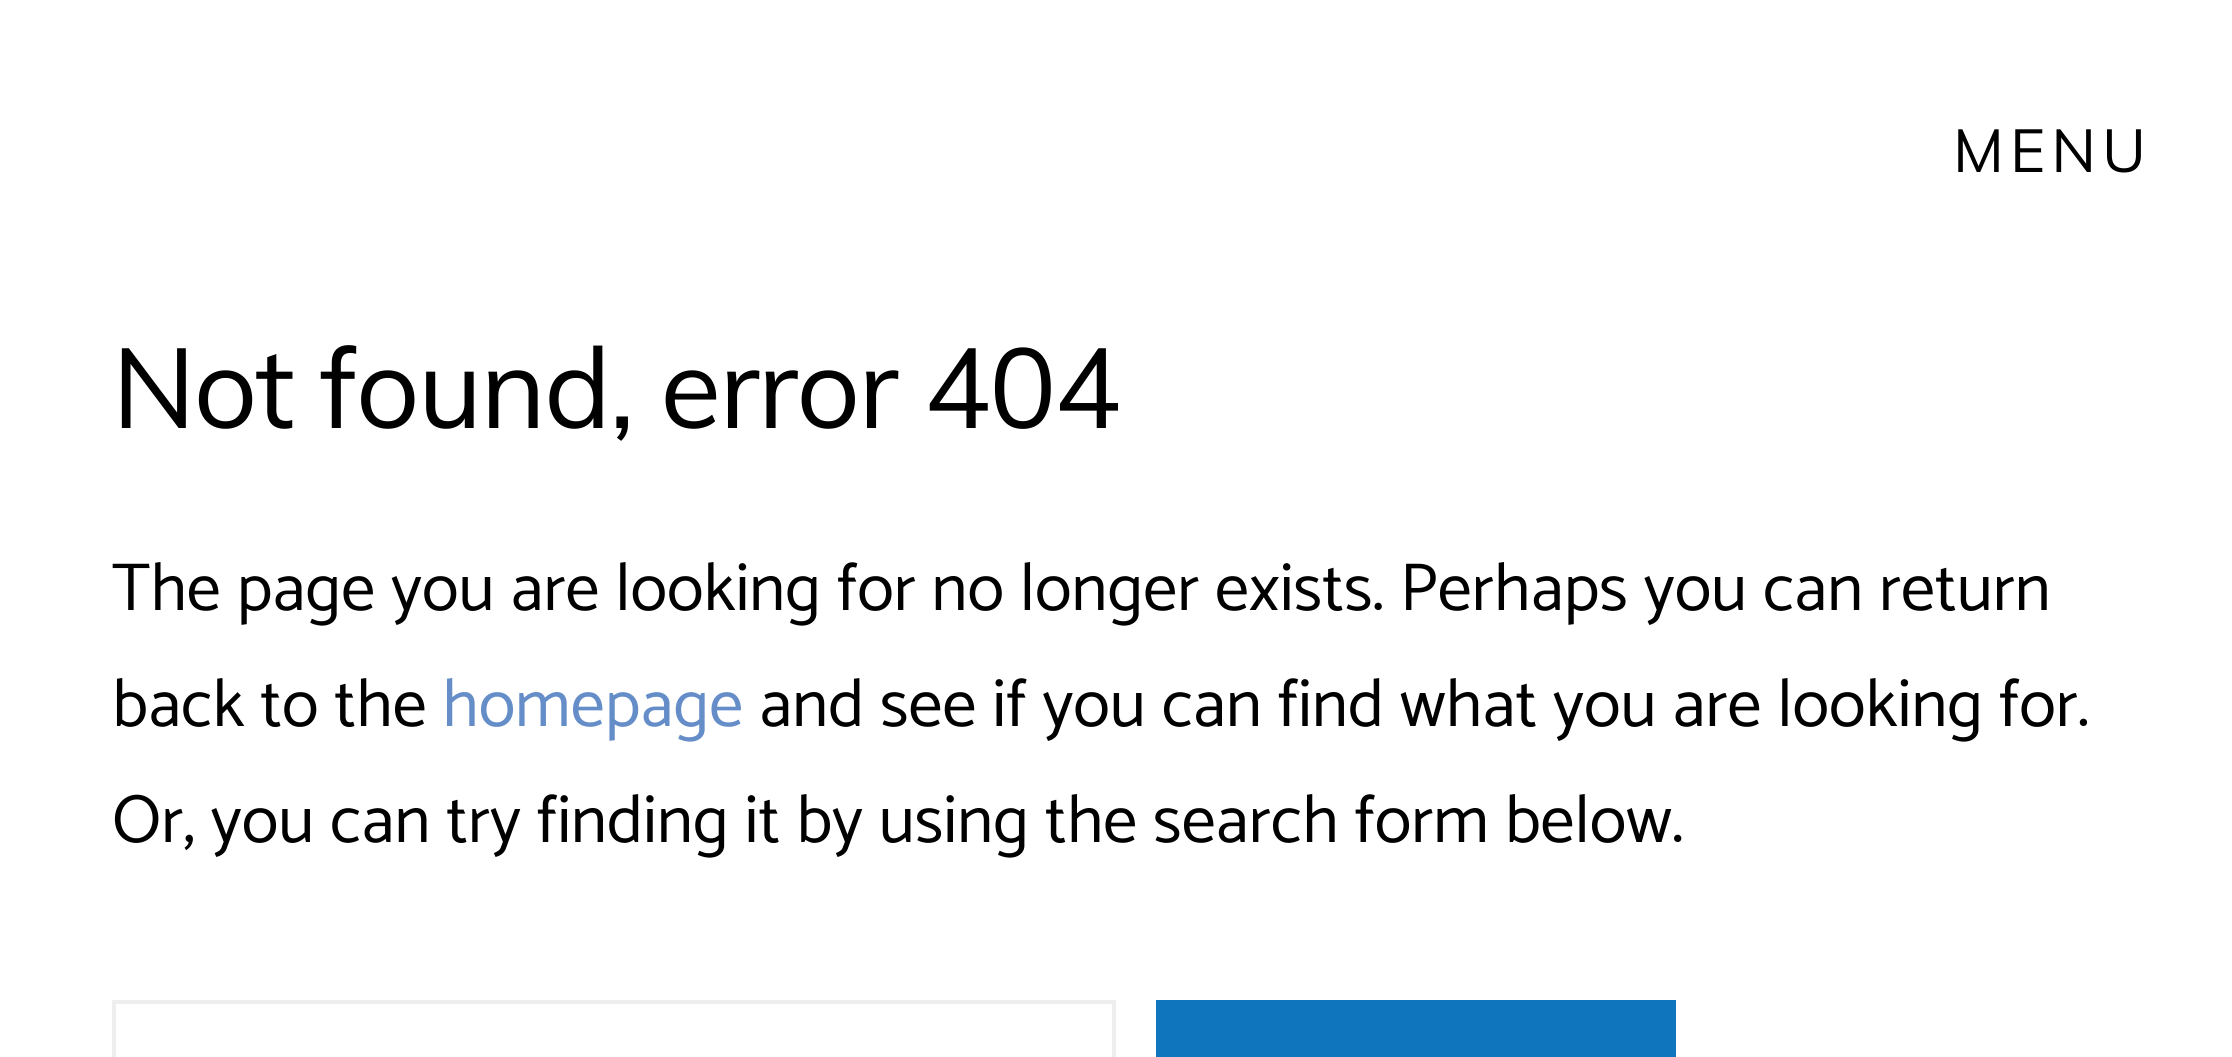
import math
import cairo

surface = cairo.ImageSurface(cairo.FORMAT_RGB24, 2232, 1057)
ctx = cairo.Context(surface)
options = cairo.FontOptions()
options.set_hint_metrics(cairo.HINT_METRICS_OFF)
options.set_hint_style(cairo.HINT_STYLE_NONE)
ctx.set_font_options(options)
ctx.set_miter_limit(4)


def spaced_text(x, y, s, letter, word):
    ctx.move_to(x, y)
    for ch in s:
        ctx.show_text(ch)
        ctx.rel_move_to(letter + word * (ch == ' '), 0)


ctx.set_source_rgb(1, 1, 1)
ctx.paint()
ctx.select_font_face("Muli")
ctx.set_font_size(60)
ctx.set_source_rgb(0, 0, 0)
spaced_text(1953, 172, "MENU", 6, 0)
ctx.set_font_size(112)
spaced_text(112, 428, "Not found, error 404", -2, 0)
ctx.select_font_face("Catamaran")
ctx.set_font_size(68)
ctx.move_to(112, 610)
ctx.show_text("The page you are looking for no longer exists. Perhaps you can return")
ctx.move_to(112, 726)
ctx.show_text("back to the")
ctx.set_source_rgb(0.396, 0.557, 0.788)
ctx.move_to(442, 726)
ctx.show_text("homepage")
ctx.set_source_rgb(0, 0, 0)
ctx.move_to(759, 726)
ctx.show_text("and see if you can find what you are looking for.")
ctx.move_to(112, 842)
ctx.show_text("Or, you can try finding it by using the search form below.")
ctx.rectangle(114, 1002, 1000, 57)
ctx.set_source_rgb(0.933, 0.933, 0.933)
ctx.set_line_width(4)
ctx.stroke()
ctx.set_source_rgb(0.059, 0.459, 0.737)
ctx.rectangle(1156, 1000, 520, 57)
ctx.fill()
surface.write_to_png("page.png")
